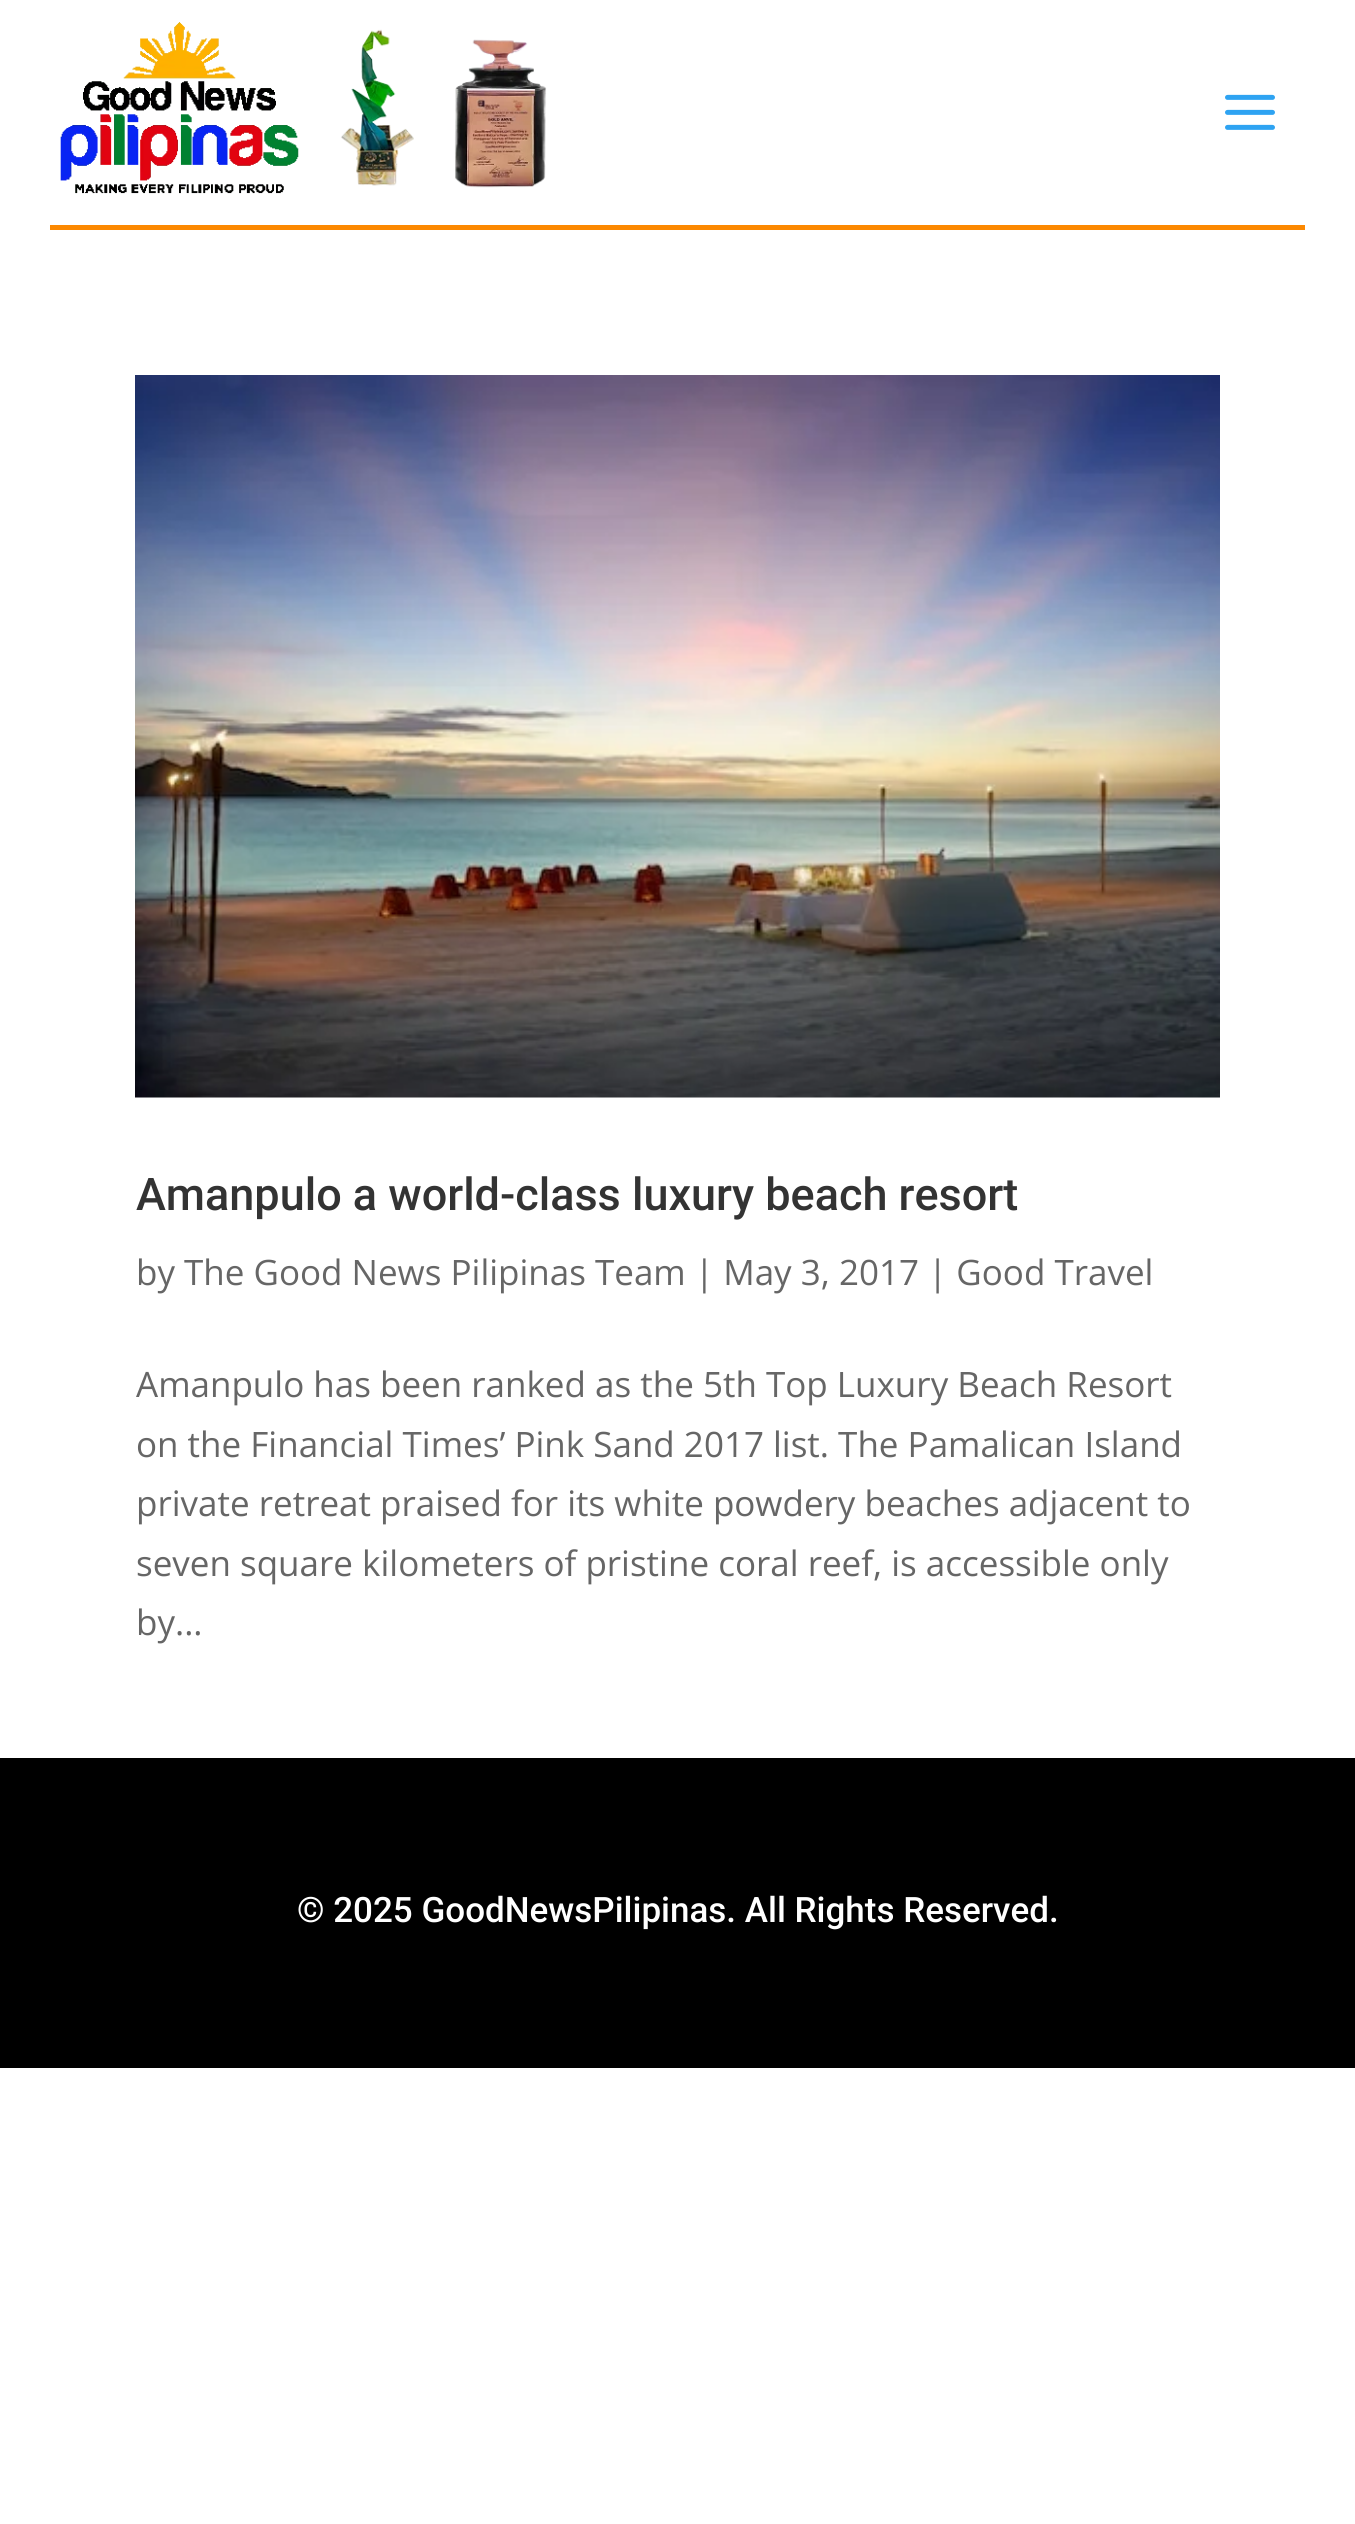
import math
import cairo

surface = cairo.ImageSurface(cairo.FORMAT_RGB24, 1355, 2524)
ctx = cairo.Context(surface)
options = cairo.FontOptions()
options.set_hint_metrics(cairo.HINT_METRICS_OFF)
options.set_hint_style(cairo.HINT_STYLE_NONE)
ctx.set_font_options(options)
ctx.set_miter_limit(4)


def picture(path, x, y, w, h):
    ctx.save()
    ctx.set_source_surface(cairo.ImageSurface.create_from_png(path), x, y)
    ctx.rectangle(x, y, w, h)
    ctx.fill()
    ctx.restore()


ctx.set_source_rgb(1, 1, 1)
ctx.paint()
ctx.set_source_rgb(0.988, 0.533, 0)
ctx.rectangle(50, 225, 1255, 5)
ctx.fill()
picture("img1.png", 60, 22, 487, 172)
picture("img2.png", 1225, 94, 50, 36)
picture("img3.png", 135, 375, 1085, 723)
ctx.select_font_face("Roboto Medium")
ctx.set_font_size(45)
ctx.set_source_rgb(0.2, 0.2, 0.2)
ctx.move_to(136, 1210)
ctx.show_text("Amanpulo a world-class luxury beach resort")
ctx.select_font_face("Open Sans")
ctx.set_font_size(35)
ctx.set_source_rgb(0.4, 0.4, 0.4)
ctx.move_to(136, 1285)
ctx.show_text("by The Good News Pilipinas Team | May 3, 2017 | Good Travel")
ctx.move_to(136, 1397)
ctx.show_text("Amanpulo has been ranked as the 5th Top Luxury Beach Resort")
ctx.move_to(136, 1457)
ctx.show_text("on the Financial Times’ Pink Sand 2017 list. The Pamalican Island")
ctx.move_to(136, 1516)
ctx.show_text("private retreat praised for its white powdery beaches adjacent to")
ctx.move_to(136, 1576)
ctx.show_text("seven square kilometers of pristine coral reef, is accessible only")
ctx.move_to(136, 1635)
ctx.show_text("by...")
ctx.set_source_rgb(0, 0, 0)
ctx.rectangle(0, 1758, 1355, 310)
ctx.fill()
ctx.select_font_face("Roboto Medium")
ctx.set_source_rgb(1, 1, 1)
ctx.move_to(297, 1922)
ctx.show_text("© 2025 GoodNewsPilipinas. All Rights Reserved.")
surface.write_to_png("page.png")
